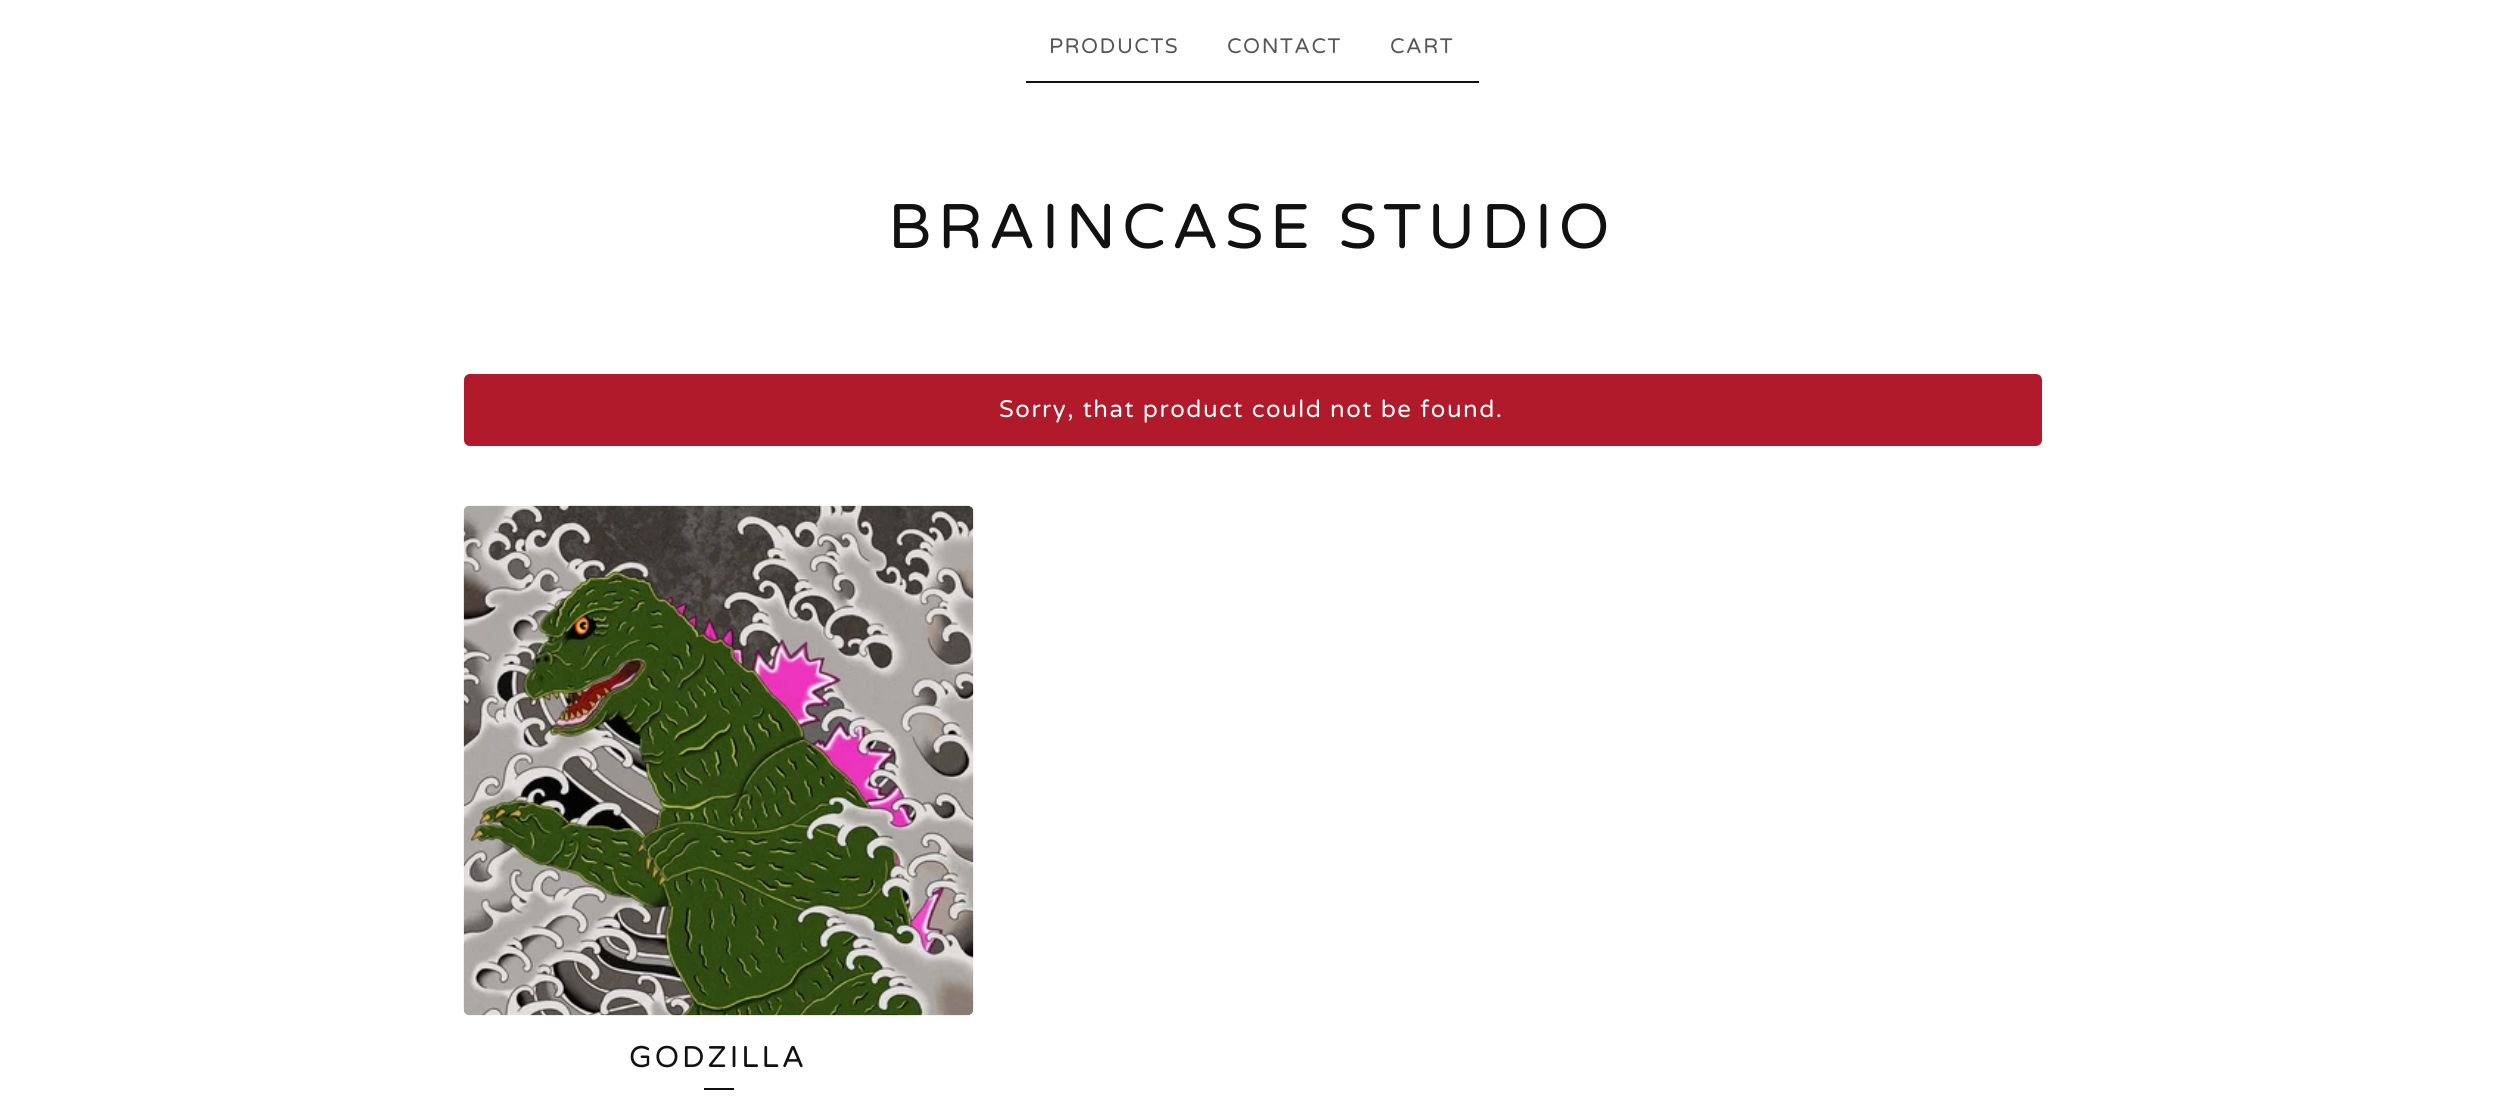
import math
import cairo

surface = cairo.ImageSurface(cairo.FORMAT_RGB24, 2503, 1101)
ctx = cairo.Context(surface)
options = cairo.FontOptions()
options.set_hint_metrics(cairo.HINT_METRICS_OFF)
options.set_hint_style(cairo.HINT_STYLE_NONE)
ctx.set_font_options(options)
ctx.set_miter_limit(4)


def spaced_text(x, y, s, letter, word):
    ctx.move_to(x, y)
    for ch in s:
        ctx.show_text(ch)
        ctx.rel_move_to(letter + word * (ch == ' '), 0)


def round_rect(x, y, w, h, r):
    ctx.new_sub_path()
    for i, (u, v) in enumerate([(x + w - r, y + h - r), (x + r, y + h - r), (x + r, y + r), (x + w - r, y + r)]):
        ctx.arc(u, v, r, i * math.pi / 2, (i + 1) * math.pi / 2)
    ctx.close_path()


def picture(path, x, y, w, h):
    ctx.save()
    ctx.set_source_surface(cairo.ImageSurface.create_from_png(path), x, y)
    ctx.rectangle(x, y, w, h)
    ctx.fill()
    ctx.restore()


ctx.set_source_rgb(1, 1, 1)
ctx.paint()
ctx.set_source_rgb(0.067, 0.067, 0.067)
ctx.rectangle(1026, 81, 453, 2)
ctx.fill()
ctx.select_font_face("Varela Round")
ctx.set_font_size(21)
ctx.set_source_rgb(0.333, 0.333, 0.333)
spaced_text(1049, 53, "PRODUCTS", 1.5, 0)
spaced_text(1227, 53, "CONTACT", 1.5, 0)
spaced_text(1390, 53, "CART", 1.5, 0)
ctx.set_font_size(63)
ctx.set_source_rgb(0.067, 0.067, 0.067)
spaced_text(888, 248, "BRAINCASE STUDIO", 6, 0)
ctx.set_source_rgb(0.694, 0.102, 0.165)
round_rect(464, 374, 1578, 72, 6)
ctx.fill()
ctx.set_font_size(24)
ctx.set_source_rgb(1, 1, 1)
spaced_text(999, 417, "Sorry, that product could not be found.", 1.5, 0)
picture("img1.png", 463, 505, 511, 511)
ctx.set_font_size(30)
ctx.set_source_rgb(0.067, 0.067, 0.067)
spaced_text(629, 1067, "GODZILLA", 3, 0)
ctx.rectangle(704, 1088, 30, 2)
ctx.fill()
surface.write_to_png("page.png")
